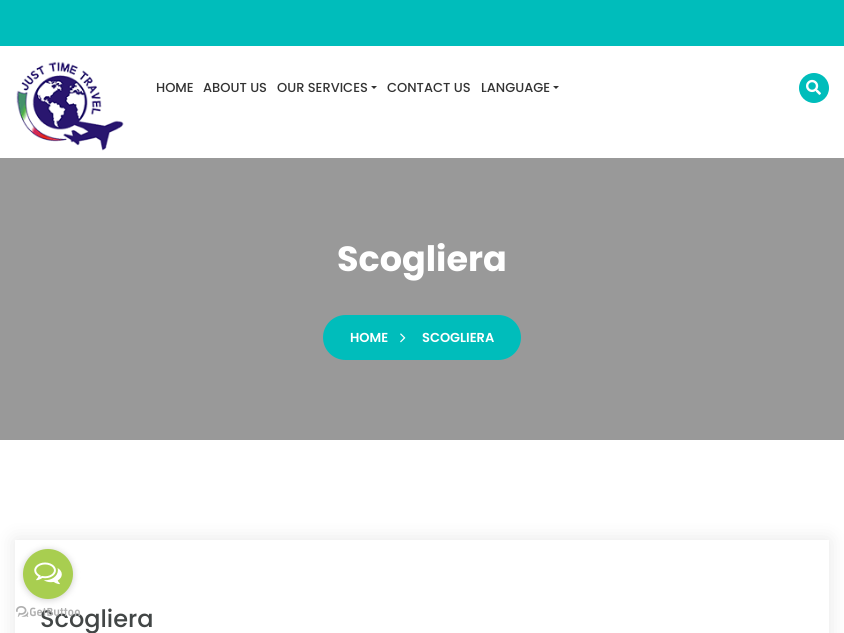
import math
import cairo

surface = cairo.ImageSurface(cairo.FORMAT_RGB24, 844, 633)
ctx = cairo.Context(surface)
options = cairo.FontOptions()
options.set_hint_metrics(cairo.HINT_METRICS_OFF)
options.set_hint_style(cairo.HINT_STYLE_NONE)
ctx.set_font_options(options)
ctx.set_miter_limit(4)


def round_rect(x, y, w, h, r):
    ctx.new_sub_path()
    for i, (u, v) in enumerate([(x + w - r, y + h - r), (x + r, y + h - r), (x + r, y + r), (x + w - r, y + r)]):
        ctx.arc(u, v, r, i * math.pi / 2, (i + 1) * math.pi / 2)
    ctx.close_path()


def shadow(x, y, w, h, r, blur, alpha):
    ctx.push_group_with_content(cairo.CONTENT_ALPHA)
    ctx.set_operator(cairo.OPERATOR_SOURCE)
    for i in range(15, -16, -2):
        e = blur * i / 6
        if min(w, h) + 2 * e > 0:
            ctx.set_source_rgba(0, 0, 0, alpha * math.erfc((i - 1) / 8.5) / 2)
            round_rect(x - e, y - e, w + 2 * e, h + 2 * e, max(0, min(r + e + blur * .6, min(w, h) / 2 + e)))
            ctx.fill()
    ctx.mask(ctx.pop_group())


def picture(path, x, y, w, h):
    ctx.save()
    ctx.set_source_surface(cairo.ImageSurface.create_from_png(path), x, y)
    ctx.rectangle(x, y, w, h)
    ctx.fill()
    ctx.restore()


ctx.set_source_rgb(1, 1, 1)
ctx.paint()
ctx.set_source_rgb(0, 0.741, 0.733)
ctx.rectangle(0, 0, 844, 46)
ctx.fill()
picture("img1.png", 16, 61, 108, 90)
ctx.select_font_face("Poppins Medium")
ctx.set_font_size(13)
ctx.set_source_rgb(0.2, 0.2, 0.2)
ctx.move_to(156, 92)
ctx.show_text("HOME")
ctx.move_to(203, 92)
ctx.show_text("ABOUT US")
ctx.move_to(277, 92)
ctx.show_text("OUR SERVICES")
ctx.new_path()
ctx.move_to(371, 86)
ctx.line_to(377, 86)
ctx.line_to(374, 89)
ctx.close_path()
ctx.fill()
ctx.move_to(387, 92)
ctx.show_text("CONTACT US")
ctx.move_to(481, 92)
ctx.show_text("LANGUAGE")
ctx.new_path()
ctx.move_to(553, 86)
ctx.line_to(559, 86)
ctx.line_to(556, 89)
ctx.close_path()
ctx.fill()
ctx.set_source_rgb(0, 0.741, 0.733)
ctx.arc(814, 88, 15, 0, 2 * math.pi)
ctx.fill()
picture("img2.png", 806, 79, 15, 16)
ctx.set_source_rgb(0.6, 0.6, 0.6)
ctx.rectangle(0, 158, 844, 282)
ctx.fill()
ctx.select_font_face("Poppins", cairo.FONT_SLANT_NORMAL, cairo.FONT_WEIGHT_BOLD)
ctx.set_font_size(35)
ctx.set_source_rgb(1, 1, 1)
ctx.move_to(337, 271)
ctx.show_text("Scogliera")
ctx.set_source_rgb(0, 0.741, 0.733)
round_rect(323, 315, 198, 45, 22.5)
ctx.fill()
ctx.select_font_face("Poppins SemiBold")
ctx.set_font_size(13)
ctx.set_source_rgb(1, 1, 1)
ctx.move_to(350, 342)
ctx.show_text("HOME")
picture("img3.png", 400, 333, 6, 10)
ctx.move_to(422, 342)
ctx.show_text("SCOGLIERA")
ctx.save()
ctx.set_fill_rule(cairo.FILL_RULE_EVEN_ODD)
ctx.new_path()
ctx.move_to(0, 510)
ctx.line_to(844, 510)
ctx.line_to(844, 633)
ctx.line_to(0, 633)
ctx.close_path()
ctx.move_to(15, 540)
ctx.line_to(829, 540)
ctx.line_to(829, 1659)
ctx.line_to(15, 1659)
ctx.close_path()
ctx.clip()
ctx.set_source_rgb(0, 0, 0)
shadow(15, 540, 814, 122, 0, 9.5, 0.1)
ctx.restore()
ctx.select_font_face("Poppins Medium")
ctx.set_font_size(24)
ctx.set_source_rgb(0.259, 0.275, 0.275)
ctx.move_to(40, 627)
ctx.show_text("Scogliera")
picture("img5.png", 16, 606, 64, 11)
ctx.set_source_rgb(0.533, 0.533, 0.533)
shadow(23, 550, 50, 50, 25, 3.5, 0.4)
ctx.set_source_rgb(0.659, 0.808, 0.314)
ctx.arc(48, 574, 25, 0, 2 * math.pi)
ctx.fill()
picture("img4.png", 34, 562, 28, 23)
surface.write_to_png("page.png")
